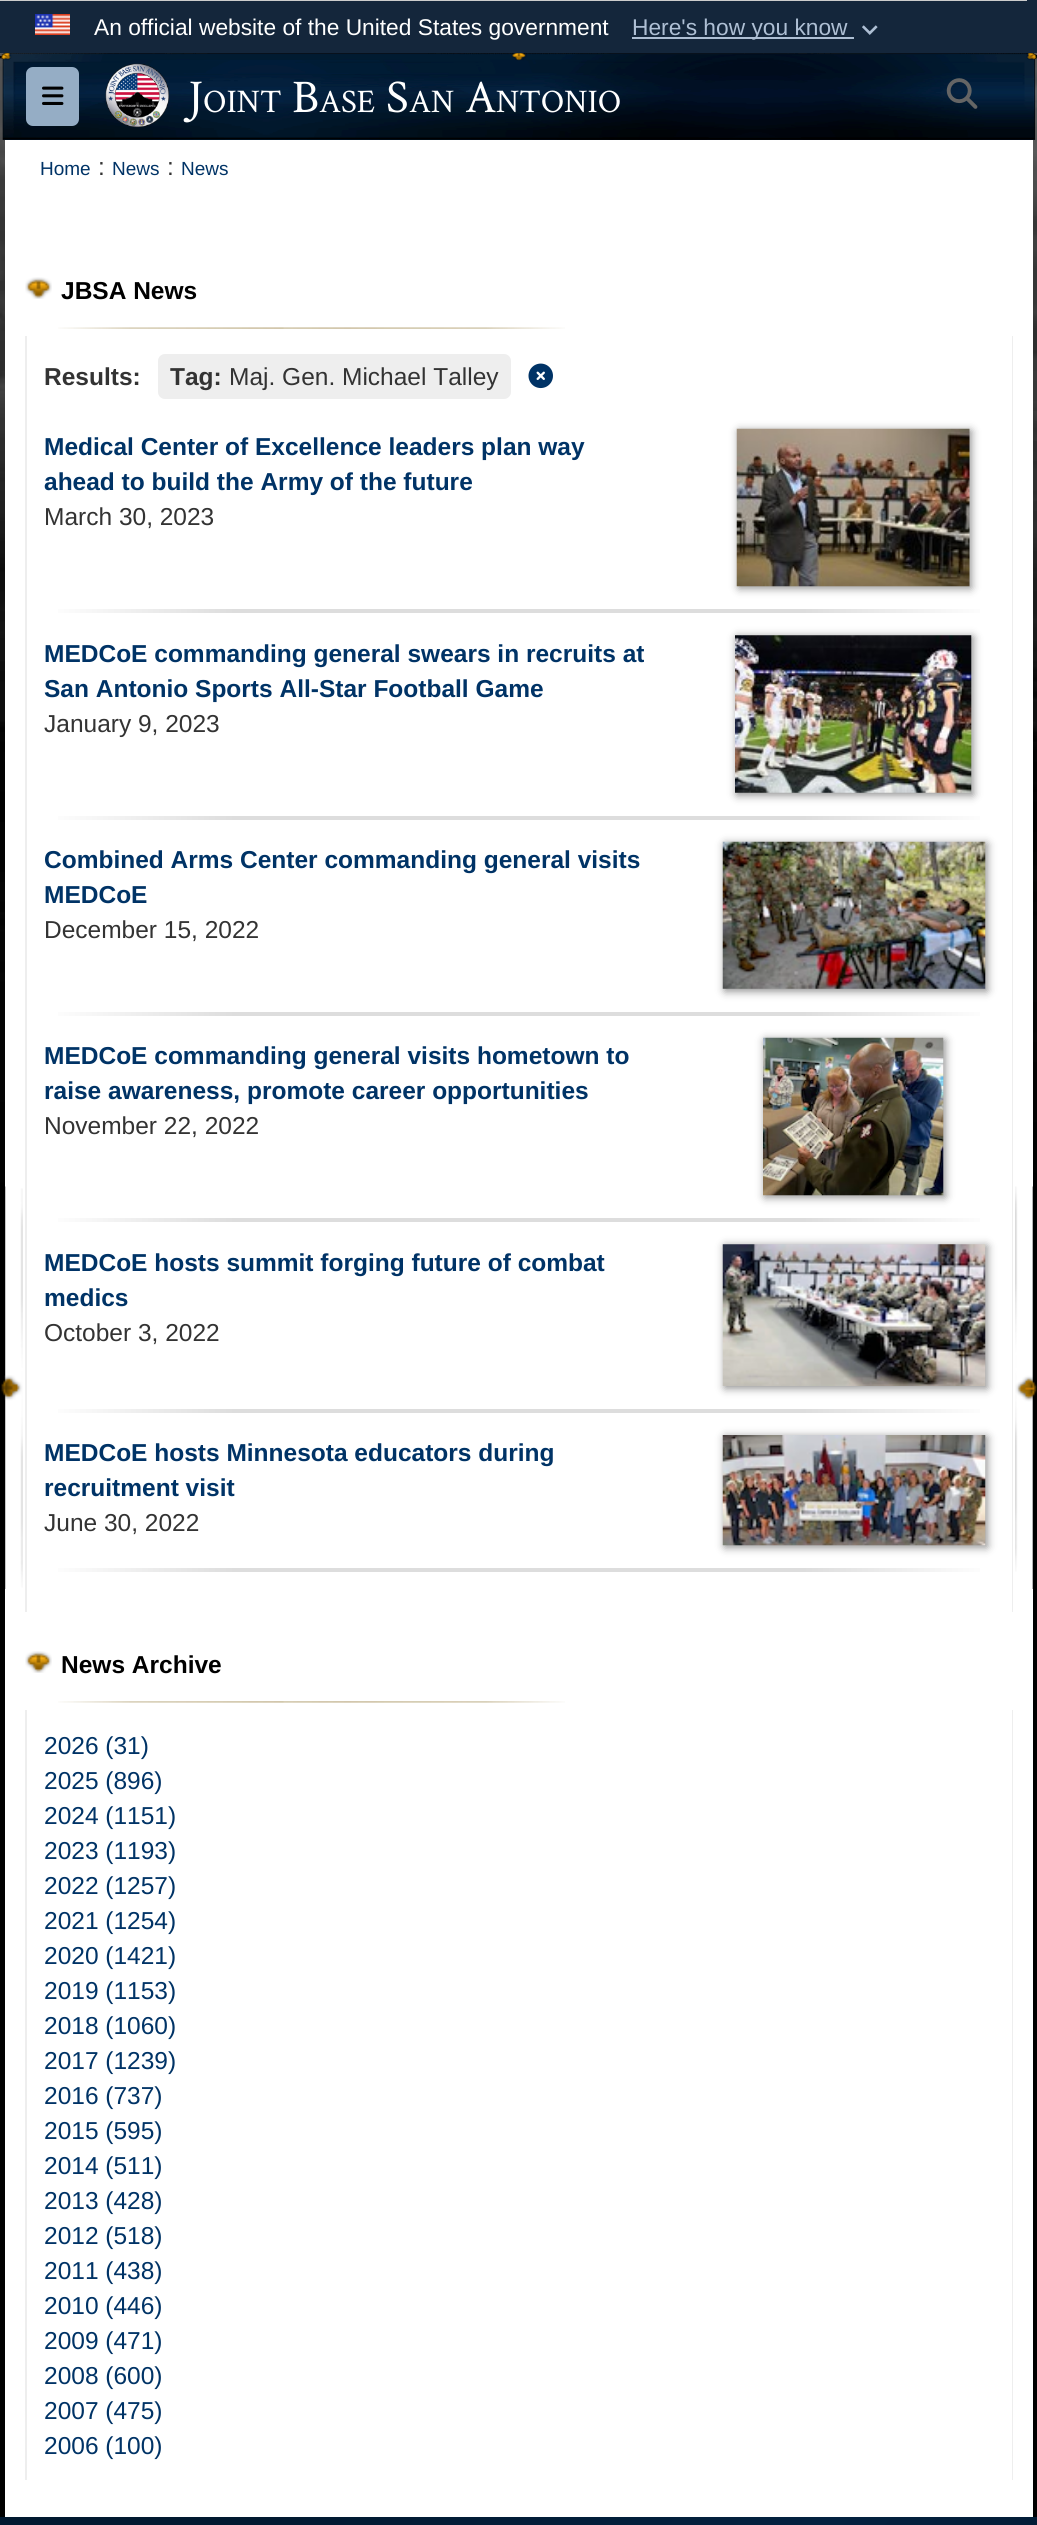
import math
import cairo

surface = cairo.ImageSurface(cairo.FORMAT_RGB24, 1037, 2525)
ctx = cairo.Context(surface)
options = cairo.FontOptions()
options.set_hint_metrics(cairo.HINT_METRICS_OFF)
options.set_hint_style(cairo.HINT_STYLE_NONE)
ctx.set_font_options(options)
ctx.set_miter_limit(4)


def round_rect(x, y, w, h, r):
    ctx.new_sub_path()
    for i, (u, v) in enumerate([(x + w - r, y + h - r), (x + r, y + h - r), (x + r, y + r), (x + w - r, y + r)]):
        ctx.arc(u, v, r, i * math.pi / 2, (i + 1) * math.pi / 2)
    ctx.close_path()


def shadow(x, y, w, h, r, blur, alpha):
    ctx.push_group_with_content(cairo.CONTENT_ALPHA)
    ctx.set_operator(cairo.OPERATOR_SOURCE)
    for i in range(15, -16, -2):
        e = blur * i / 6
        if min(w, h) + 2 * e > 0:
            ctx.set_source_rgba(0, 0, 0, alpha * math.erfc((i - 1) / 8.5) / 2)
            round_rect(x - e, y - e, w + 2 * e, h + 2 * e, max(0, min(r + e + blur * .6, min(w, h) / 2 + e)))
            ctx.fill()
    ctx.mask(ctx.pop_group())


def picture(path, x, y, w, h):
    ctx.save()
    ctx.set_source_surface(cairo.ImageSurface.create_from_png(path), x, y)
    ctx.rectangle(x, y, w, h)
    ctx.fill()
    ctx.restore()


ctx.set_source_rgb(1, 1, 1)
ctx.paint()
picture("img1.png", 0, 53, 1037, 2464)
ctx.set_source_rgb(0.082, 0.149, 0.231)
ctx.rectangle(0, 0, 1037, 53)
ctx.fill()
picture("img2.png", 35, 14, 35, 21)
ctx.select_font_face("Liberation Sans")
ctx.set_font_size(22.75)
ctx.set_source_rgb(1, 1, 1)
ctx.move_to(94, 35)
ctx.show_text("An official website of the United States government")
ctx.set_source_rgb(0.682, 0.749, 0.831)
ctx.rectangle(632, 37, 222, 2)
ctx.fill()
ctx.move_to(632, 35)
ctx.show_text("Here's how you know")
picture("img3.png", 862, 25, 16, 10)
ctx.set_source_rgb(0.8, 0.8, 0.8)
ctx.rectangle(0, 0, 1027, 1)
ctx.fill()
picture("img4.png", 0, 53, 1037, 87)
ctx.set_source_rgb(0.584, 0.678, 0.773)
round_rect(26, 67, 53, 59, 7)
ctx.fill()
picture("img5.png", 42, 86, 22, 19)
picture("img6.png", 105, 63, 64, 65)
ctx.select_font_face("Crimson Text")
ctx.set_font_size(47)
ctx.set_source_rgb(1, 1, 1)
ctx.move_to(188, 112)
ctx.show_text("J")
ctx.set_font_size(33)
ctx.move_to(203, 112)
ctx.show_text("OINT")
ctx.set_font_size(47)
ctx.move_to(292, 112)
ctx.show_text("B")
ctx.set_font_size(33)
ctx.move_to(319, 112)
ctx.show_text("ASE")
ctx.set_font_size(47)
ctx.move_to(386, 112)
ctx.show_text("S")
ctx.set_font_size(33)
ctx.move_to(409, 112)
ctx.show_text("AN")
ctx.set_font_size(47)
ctx.move_to(465, 112)
ctx.show_text("A")
ctx.set_font_size(33)
ctx.move_to(496, 112)
ctx.show_text("NTONIO")
picture("img7.png", 946, 78, 32, 31)
ctx.rectangle(5, 140, 1028, 2377)
ctx.fill()
ctx.select_font_face("Liberation Sans")
ctx.set_font_size(19)
ctx.set_source_rgb(0, 0.2, 0.4)
ctx.move_to(40, 175)
ctx.show_text("Home")
ctx.set_font_size(24.5)
ctx.set_source_rgb(0.2, 0.2, 0.2)
ctx.move_to(98, 175)
ctx.show_text(":")
ctx.set_font_size(19)
ctx.set_source_rgb(0, 0.2, 0.4)
ctx.move_to(112, 175)
ctx.show_text("News")
ctx.set_font_size(24.5)
ctx.set_source_rgb(0.2, 0.2, 0.2)
ctx.move_to(167, 175)
ctx.show_text(":")
ctx.set_font_size(19)
ctx.set_source_rgb(0, 0.2, 0.4)
ctx.move_to(181, 175)
ctx.show_text("News")
picture("img8.png", 1, 1186, 1036, 403)
picture("img9.png", 58, 327, 507, 2)
picture("img10.png", 25, 277, 27, 22)
ctx.select_font_face("Liberation Sans", cairo.FONT_SLANT_NORMAL, cairo.FONT_WEIGHT_BOLD)
ctx.set_font_size(24.5)
ctx.set_source_rgb(0, 0, 0)
ctx.move_to(61, 299)
ctx.show_text("JBSA News")
ctx.set_source_rgb(0.933, 0.933, 0.933)
ctx.rectangle(1012, 336, 1, 1276)
ctx.fill()
ctx.rectangle(25, 336, 2, 1276)
ctx.fill()
ctx.set_source_rgb(0.2, 0.2, 0.2)
ctx.move_to(44, 385)
ctx.show_text("Results:")
ctx.set_source_rgb(0.933, 0.933, 0.933)
round_rect(158, 354, 353, 45, 7)
ctx.fill()
ctx.set_source_rgb(0.2, 0.2, 0.2)
ctx.move_to(170, 385)
ctx.show_text("Tag:")
ctx.select_font_face("Liberation Sans")
ctx.move_to(229, 385)
ctx.show_text("Maj. Gen. Michael Talley")
picture("img11.png", 528, 363, 25, 26)
ctx.select_font_face("Liberation Sans", cairo.FONT_SLANT_NORMAL, cairo.FONT_WEIGHT_BOLD)
ctx.set_source_rgb(0, 0.2, 0.4)
ctx.move_to(44, 455)
ctx.show_text("Medical Center of Excellence leaders plan way")
ctx.move_to(44, 490)
ctx.show_text("ahead to build the Army of the future")
ctx.select_font_face("Liberation Sans")
ctx.set_source_rgb(0.2, 0.2, 0.2)
ctx.move_to(44, 525)
ctx.show_text("March 30, 2023")
ctx.set_source_rgb(0.533, 0.533, 0.533)
shadow(739, 431, 232, 157, 0, 4.5, 1)
picture("img12.png", 736, 428, 234, 159)
gradient = cairo.LinearGradient(44, 611, 994, 611)
gradient.add_color_stop_rgba(0, 1, 1, 1, 1)
gradient.add_color_stop_rgba(0.2, 0.867, 0.867, 0.867, 1)
gradient.add_color_stop_rgba(0.8, 0.867, 0.867, 0.867, 1)
gradient.add_color_stop_rgba(1, 1, 1, 1, 1)
ctx.set_source(gradient)
ctx.rectangle(58, 609, 922, 4)
ctx.fill()
ctx.select_font_face("Liberation Sans", cairo.FONT_SLANT_NORMAL, cairo.FONT_WEIGHT_BOLD)
ctx.set_source_rgb(0, 0.2, 0.4)
ctx.move_to(44, 662)
ctx.show_text("MEDCoE commanding general swears in recruits at")
ctx.move_to(44, 697)
ctx.show_text("San Antonio Sports All-Star Football Game")
ctx.select_font_face("Liberation Sans")
ctx.set_source_rgb(0.2, 0.2, 0.2)
ctx.move_to(44, 732)
ctx.show_text("January 9, 2023")
ctx.set_source_rgb(0.533, 0.533, 0.533)
shadow(737, 637, 236, 158, 0, 4.5, 1)
picture("img13.png", 735, 635, 237, 158)
gradient = cairo.LinearGradient(44, 817, 994, 817)
gradient.add_color_stop_rgba(0, 1, 1, 1, 1)
gradient.add_color_stop_rgba(0.2, 0.867, 0.867, 0.867, 1)
gradient.add_color_stop_rgba(0.8, 0.867, 0.867, 0.867, 1)
gradient.add_color_stop_rgba(1, 1, 1, 1, 1)
ctx.set_source(gradient)
ctx.rectangle(58, 816, 922, 4)
ctx.fill()
ctx.select_font_face("Liberation Sans", cairo.FONT_SLANT_NORMAL, cairo.FONT_WEIGHT_BOLD)
ctx.set_source_rgb(0, 0.2, 0.4)
ctx.move_to(44, 868)
ctx.show_text("Combined Arms Center commanding general visits")
ctx.move_to(44, 903)
ctx.show_text("MEDCoE")
ctx.select_font_face("Liberation Sans")
ctx.set_source_rgb(0.2, 0.2, 0.2)
ctx.move_to(44, 938)
ctx.show_text("December 15, 2022")
ctx.set_source_rgb(0.533, 0.533, 0.533)
shadow(725, 844, 262, 147, 0, 4.5, 1)
picture("img14.png", 722, 841, 264, 148)
gradient = cairo.LinearGradient(44, 1013, 994, 1013)
gradient.add_color_stop_rgba(0, 1, 1, 1, 1)
gradient.add_color_stop_rgba(0.2, 0.867, 0.867, 0.867, 1)
gradient.add_color_stop_rgba(0.8, 0.867, 0.867, 0.867, 1)
gradient.add_color_stop_rgba(1, 1, 1, 1, 1)
ctx.set_source(gradient)
ctx.rectangle(58, 1012, 922, 4)
ctx.fill()
ctx.select_font_face("Liberation Sans", cairo.FONT_SLANT_NORMAL, cairo.FONT_WEIGHT_BOLD)
ctx.set_source_rgb(0, 0.2, 0.4)
ctx.move_to(44, 1064)
ctx.show_text("MEDCoE commanding general visits hometown to")
ctx.move_to(44, 1099)
ctx.show_text("raise awareness, promote career opportunities")
ctx.select_font_face("Liberation Sans")
ctx.set_source_rgb(0.2, 0.2, 0.2)
ctx.move_to(44, 1134)
ctx.show_text("November 22, 2022")
ctx.set_source_rgb(0.533, 0.533, 0.533)
shadow(765, 1040, 180, 157, 0, 4.5, 1)
picture("img15.png", 763, 1037, 181, 159)
gradient = cairo.LinearGradient(44, 1220, 994, 1220)
gradient.add_color_stop_rgba(0, 1, 1, 1, 1)
gradient.add_color_stop_rgba(0.2, 0.867, 0.867, 0.867, 1)
gradient.add_color_stop_rgba(0.8, 0.867, 0.867, 0.867, 1)
gradient.add_color_stop_rgba(1, 1, 1, 1, 1)
ctx.set_source(gradient)
ctx.rectangle(58, 1218, 922, 4)
ctx.fill()
ctx.select_font_face("Liberation Sans", cairo.FONT_SLANT_NORMAL, cairo.FONT_WEIGHT_BOLD)
ctx.set_source_rgb(0, 0.2, 0.4)
ctx.move_to(44, 1271)
ctx.show_text("MEDCoE hosts summit forging future of combat")
ctx.move_to(44, 1306)
ctx.show_text("medics")
ctx.select_font_face("Liberation Sans")
ctx.set_source_rgb(0.2, 0.2, 0.2)
ctx.move_to(44, 1341)
ctx.show_text("October 3, 2022")
ctx.set_source_rgb(0.533, 0.533, 0.533)
shadow(725, 1246, 262, 142, 0, 4.5, 1)
picture("img16.png", 722, 1244, 264, 142)
gradient = cairo.LinearGradient(44, 1411, 994, 1411)
gradient.add_color_stop_rgba(0, 1, 1, 1, 1)
gradient.add_color_stop_rgba(0.2, 0.867, 0.867, 0.867, 1)
gradient.add_color_stop_rgba(0.8, 0.867, 0.867, 0.867, 1)
gradient.add_color_stop_rgba(1, 1, 1, 1, 1)
ctx.set_source(gradient)
ctx.rectangle(58, 1409, 922, 4)
ctx.fill()
ctx.select_font_face("Liberation Sans", cairo.FONT_SLANT_NORMAL, cairo.FONT_WEIGHT_BOLD)
ctx.set_source_rgb(0, 0.2, 0.4)
ctx.move_to(44, 1461)
ctx.show_text("MEDCoE hosts Minnesota educators during")
ctx.move_to(44, 1496)
ctx.show_text("recruitment visit")
ctx.select_font_face("Liberation Sans")
ctx.set_source_rgb(0.2, 0.2, 0.2)
ctx.move_to(44, 1531)
ctx.show_text("June 30, 2022")
ctx.set_source_rgb(0.533, 0.533, 0.533)
shadow(725, 1437, 262, 110, 0, 4.5, 1)
picture("img17.png", 722, 1435, 264, 111)
gradient = cairo.LinearGradient(44, 1570, 994, 1570)
gradient.add_color_stop_rgba(0, 1, 1, 1, 1)
gradient.add_color_stop_rgba(0.2, 0.867, 0.867, 0.867, 1)
gradient.add_color_stop_rgba(0.8, 0.867, 0.867, 0.867, 1)
gradient.add_color_stop_rgba(1, 1, 1, 1, 1)
ctx.set_source(gradient)
ctx.rectangle(58, 1568, 922, 4)
ctx.fill()
picture("img18.png", 58, 1701, 507, 2)
picture("img19.png", 25, 1651, 27, 22)
ctx.select_font_face("Liberation Sans", cairo.FONT_SLANT_NORMAL, cairo.FONT_WEIGHT_BOLD)
ctx.set_source_rgb(0, 0, 0)
ctx.move_to(61, 1673)
ctx.show_text("News Archive")
ctx.set_source_rgb(0.933, 0.933, 0.933)
ctx.rectangle(1012, 1710, 1, 770)
ctx.fill()
ctx.rectangle(25, 1710, 2, 770)
ctx.fill()
ctx.select_font_face("Liberation Sans")
ctx.set_source_rgb(0, 0.2, 0.4)
ctx.move_to(44, 1754)
ctx.show_text("2026 (31)")
ctx.move_to(44, 1789)
ctx.show_text("2025 (896)")
ctx.move_to(44, 1824)
ctx.show_text("2024 (1151)")
ctx.move_to(44, 1859)
ctx.show_text("2023 (1193)")
ctx.move_to(44, 1894)
ctx.show_text("2022 (1257)")
ctx.move_to(44, 1929)
ctx.show_text("2021 (1254)")
ctx.move_to(44, 1964)
ctx.show_text("2020 (1421)")
ctx.move_to(44, 1999)
ctx.show_text("2019 (1153)")
ctx.move_to(44, 2034)
ctx.show_text("2018 (1060)")
ctx.move_to(44, 2069)
ctx.show_text("2017 (1239)")
ctx.move_to(44, 2104)
ctx.show_text("2016 (737)")
ctx.move_to(44, 2139)
ctx.show_text("2015 (595)")
ctx.move_to(44, 2174)
ctx.show_text("2014 (511)")
ctx.move_to(44, 2209)
ctx.show_text("2013 (428)")
ctx.move_to(44, 2244)
ctx.show_text("2012 (518)")
ctx.move_to(44, 2279)
ctx.show_text("2011 (438)")
ctx.move_to(44, 2314)
ctx.show_text("2010 (446)")
ctx.move_to(44, 2349)
ctx.show_text("2009 (471)")
ctx.move_to(44, 2384)
ctx.show_text("2008 (600)")
ctx.move_to(44, 2419)
ctx.show_text("2007 (475)")
ctx.move_to(44, 2454)
ctx.show_text("2006 (100)")
gradient = cairo.LinearGradient(34, 2483, 1004, 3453)
gradient.add_color_stop_rgba(0, 0.004, 0.098, 0.188, 1)
gradient.add_color_stop_rgba(0.13, 0.004, 0.098, 0.188, 1)
gradient.add_color_stop_rgba(0.43, 0.012, 0.133, 0.251, 1)
gradient.add_color_stop_rgba(0.79, 0.004, 0.067, 0.133, 1)
gradient.add_color_stop_rgba(1, 0, 0.043, 0.086, 1)
ctx.set_source(gradient)
ctx.rectangle(0, 2517, 1037, 8)
ctx.fill()
surface.write_to_png("page.png")
